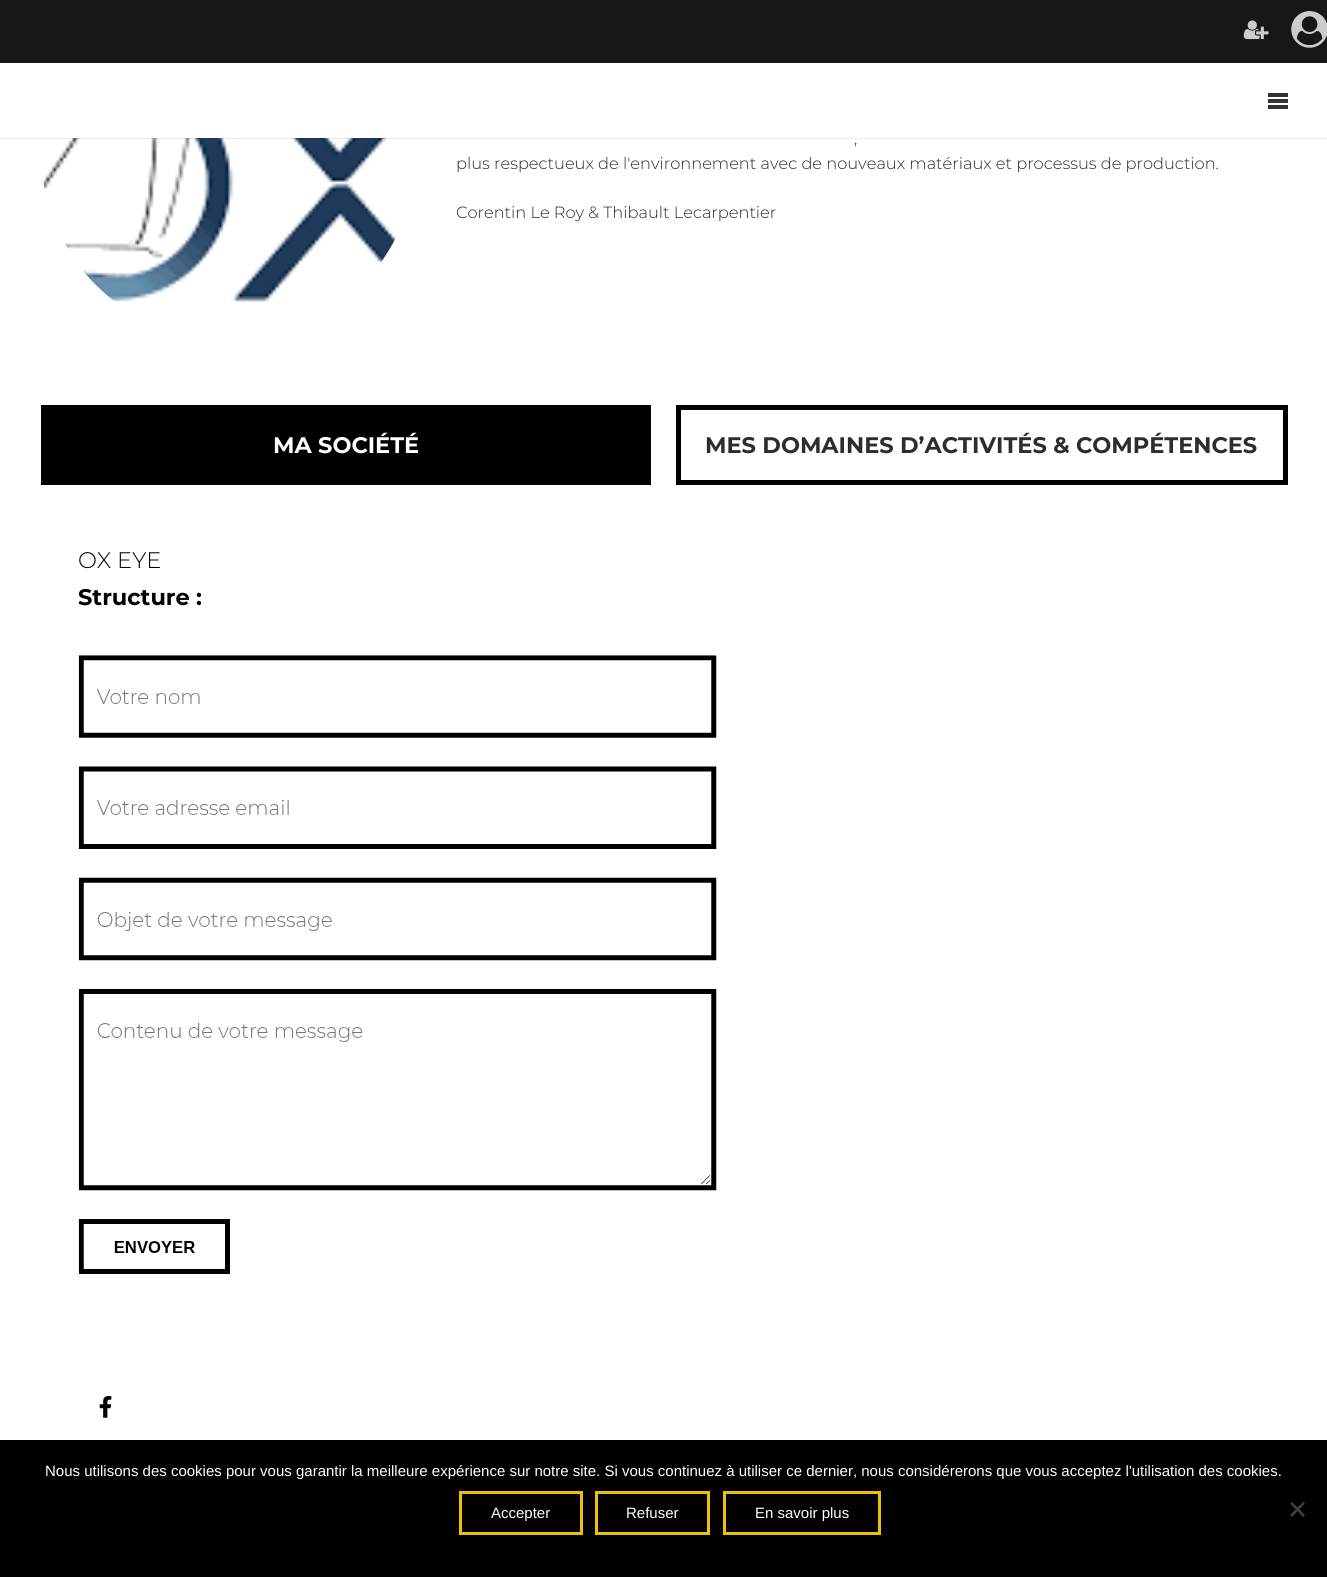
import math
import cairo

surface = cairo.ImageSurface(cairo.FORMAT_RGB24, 1327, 1577)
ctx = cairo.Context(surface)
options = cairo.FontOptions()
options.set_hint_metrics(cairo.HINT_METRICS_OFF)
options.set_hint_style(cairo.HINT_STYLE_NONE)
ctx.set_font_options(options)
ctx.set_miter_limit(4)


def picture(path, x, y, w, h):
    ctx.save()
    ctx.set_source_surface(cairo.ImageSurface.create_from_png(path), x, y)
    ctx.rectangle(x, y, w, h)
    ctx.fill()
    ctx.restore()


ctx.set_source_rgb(1, 1, 1)
ctx.paint()
ctx.set_source_rgb(0.086, 0.09, 0.098)
ctx.rectangle(0, 0, 1327, 63)
ctx.fill()
picture("img1.png", 1243, 20, 26, 20)
picture("img2.png", 1291, 11, 36, 37)
picture("img3.png", 43, 138, 368, 164)
ctx.set_source_rgba(0, 0, 0, 0.08)
ctx.new_path()
ctx.move_to(0, 138)
ctx.line_to(0, 139)
ctx.line_to(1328, 139)
ctx.line_to(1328, 64)
ctx.line_to(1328, 138)
ctx.close_path()
ctx.fill()
ctx.set_source_rgb(0.2, 0.2, 0.2)
ctx.rectangle(1268, 99, 20, 4)
ctx.fill()
ctx.rectangle(1268, 93, 20, 4)
ctx.fill()
ctx.rectangle(1268, 105, 20, 4)
ctx.fill()
ctx.select_font_face("Montserrat Light")
ctx.set_font_size(16.25)
ctx.set_source_rgb(0.149, 0.157, 0.165)
ctx.move_to(854, 144)
ctx.show_text(",")
ctx.move_to(456, 169)
ctx.show_text("plus respectueux de l'environnement avec de nouveaux matériaux et processus de production.")
ctx.move_to(456, 218)
ctx.show_text("Corentin Le Roy & Thibault Lecarpentier")
ctx.set_source_rgb(0, 0, 0)
ctx.rectangle(41, 405, 610, 80)
ctx.fill()
ctx.select_font_face("Montserrat", cairo.FONT_SLANT_NORMAL, cairo.FONT_WEIGHT_BOLD)
ctx.set_font_size(22.5)
ctx.set_source_rgb(1, 1, 1)
ctx.move_to(273, 453)
ctx.show_text("MA SOCIÉTÉ")
ctx.rectangle(678.5, 407.5, 607, 75)
ctx.set_source_rgb(0, 0, 0)
ctx.set_line_width(5)
ctx.stroke()
ctx.set_source_rgb(0.18, 0.176, 0.173)
ctx.move_to(705, 453)
ctx.show_text("MES DOMAINES D’ACTIVITÉS & COMPÉTENCES")
ctx.select_font_face("Montserrat Light")
ctx.set_source_rgb(0, 0, 0)
ctx.move_to(78, 568)
ctx.show_text("OX EYE")
ctx.select_font_face("Montserrat", cairo.FONT_SLANT_NORMAL, cairo.FONT_WEIGHT_BOLD)
ctx.move_to(78, 605)
ctx.show_text("Structure :")
picture("img4.png", 78, 655, 639, 619)
picture("img5.png", 99, 1396, 13, 22)
ctx.rectangle(0, 1440, 1327, 137)
ctx.fill()
ctx.select_font_face("Liberation Sans")
ctx.set_font_size(15)
ctx.set_source_rgb(1, 1, 1)
ctx.move_to(45, 1476)
ctx.show_text("Nous utilisons des cookies pour vous garantir la meilleure expérience sur notre site. Si vous continuez à utiliser ce dernier, nous considérerons que vous acceptez l'utilisation des cookies.")
ctx.rectangle(460.5, 1492.5, 121, 41)
ctx.set_source_rgb(0.914, 0.761, 0.012)
ctx.set_line_width(3)
ctx.stroke()
ctx.set_source_rgb(1, 1, 1)
ctx.move_to(491, 1518)
ctx.show_text("Accepter")
ctx.rectangle(596.5, 1492.5, 112, 41)
ctx.set_source_rgb(0.914, 0.761, 0.012)
ctx.stroke()
ctx.set_source_rgb(1, 1, 1)
ctx.move_to(626, 1518)
ctx.show_text("Refuser")
ctx.rectangle(724.5, 1492.5, 155, 41)
ctx.set_source_rgb(0.914, 0.761, 0.012)
ctx.stroke()
ctx.set_source_rgb(1, 1, 1)
ctx.move_to(755, 1518)
ctx.show_text("En savoir plus")
ctx.set_source_rgb(0.251, 0.251, 0.251)
ctx.new_path()
ctx.move_to(1303, 1502)
ctx.line_to(1305, 1503.5)
ctx.line_to(1292, 1517)
ctx.line_to(1290, 1515)
ctx.close_path()
ctx.fill()
ctx.new_path()
ctx.move_to(1290, 1503.5)
ctx.line_to(1292, 1502)
ctx.line_to(1305, 1515)
ctx.line_to(1303, 1517)
ctx.close_path()
ctx.fill()
surface.write_to_png("page.png")
